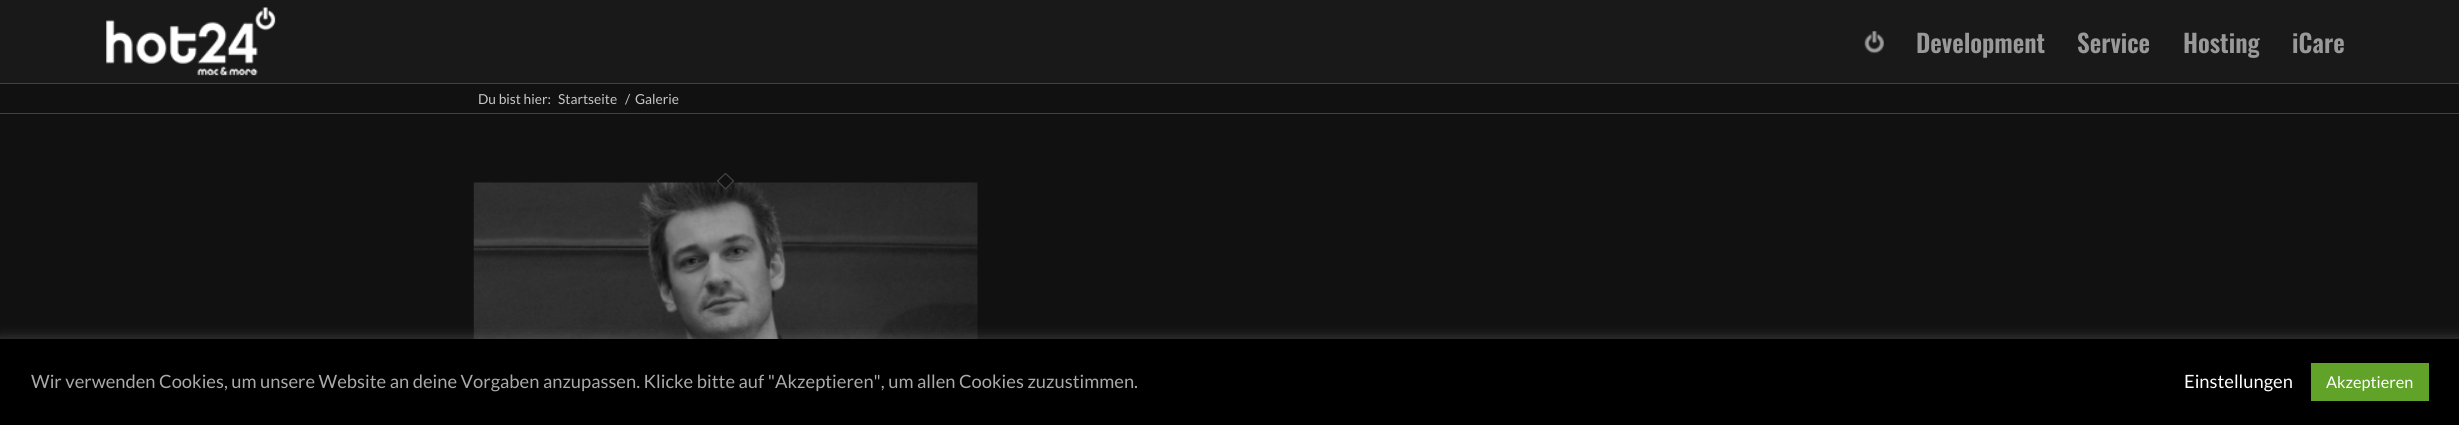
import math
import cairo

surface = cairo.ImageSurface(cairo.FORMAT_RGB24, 2459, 425)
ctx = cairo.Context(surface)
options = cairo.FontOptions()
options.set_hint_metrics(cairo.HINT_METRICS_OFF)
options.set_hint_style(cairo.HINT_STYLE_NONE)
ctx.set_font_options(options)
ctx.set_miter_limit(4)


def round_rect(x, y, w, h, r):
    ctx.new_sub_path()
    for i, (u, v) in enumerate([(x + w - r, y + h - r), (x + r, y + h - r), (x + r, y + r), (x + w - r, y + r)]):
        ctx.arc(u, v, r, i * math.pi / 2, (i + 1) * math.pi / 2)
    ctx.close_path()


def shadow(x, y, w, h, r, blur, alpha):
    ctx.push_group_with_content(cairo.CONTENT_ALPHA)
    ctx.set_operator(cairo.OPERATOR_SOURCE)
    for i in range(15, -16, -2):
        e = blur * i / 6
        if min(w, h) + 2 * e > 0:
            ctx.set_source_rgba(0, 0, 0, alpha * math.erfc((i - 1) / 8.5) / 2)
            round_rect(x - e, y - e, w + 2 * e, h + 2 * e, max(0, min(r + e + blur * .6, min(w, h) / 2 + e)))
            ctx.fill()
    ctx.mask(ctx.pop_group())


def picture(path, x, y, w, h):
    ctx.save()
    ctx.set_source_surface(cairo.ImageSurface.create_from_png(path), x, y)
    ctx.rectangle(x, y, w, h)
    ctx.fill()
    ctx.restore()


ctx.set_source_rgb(0.098, 0.098, 0.098)
ctx.paint()
picture("img1.png", 106, 7, 170, 69)
picture("img2.png", 1864, 31, 20, 23)
ctx.select_font_face("Oswald SemiBold")
ctx.set_font_size(25)
ctx.set_source_rgb(0.6, 0.6, 0.6)
ctx.move_to(1916, 53)
ctx.show_text("Development")
ctx.move_to(2077, 53)
ctx.show_text("Service")
ctx.move_to(2183, 53)
ctx.show_text("Hosting")
ctx.move_to(2292, 53)
ctx.show_text("iCare")
ctx.set_source_rgb(0.067, 0.067, 0.067)
ctx.rectangle(0, 84, 2459, 29)
ctx.fill()
ctx.set_source_rgb(0.259, 0.259, 0.259)
ctx.rectangle(0, 83, 2459, 1)
ctx.fill()
ctx.select_font_face("Lato")
ctx.set_font_size(13.75)
ctx.set_source_rgb(0.78, 0.78, 0.78)
ctx.move_to(478, 104)
ctx.show_text("Du bist hier:")
ctx.move_to(558, 104)
ctx.show_text("Startseite")
ctx.move_to(625, 104)
ctx.show_text("/")
ctx.move_to(635, 104)
ctx.show_text("Galerie")
ctx.set_source_rgb(0.067, 0.067, 0.067)
ctx.rectangle(0, 114, 2459, 225)
ctx.fill()
ctx.set_source_rgb(0.259, 0.259, 0.259)
ctx.rectangle(0, 113, 2459, 1)
ctx.fill()
picture("img3.png", 473, 182, 505, 157)
ctx.set_source_rgb(0.067, 0.067, 0.067)
ctx.new_path()
ctx.move_to(725.5, 172.5)
ctx.line_to(734.5, 181)
ctx.line_to(725.5, 190)
ctx.line_to(716.5, 181)
ctx.close_path()
ctx.fill()
ctx.new_path()
ctx.move_to(725.5, 173.5)
ctx.line_to(733.5, 181)
ctx.line_to(725.5, 189)
ctx.line_to(717.5, 181)
ctx.close_path()
ctx.set_source_rgb(0.259, 0.259, 0.259)
ctx.set_line_width(1.3)
ctx.stroke()
ctx.set_source_rgb(0.675, 0.671, 0.671)
shadow(0, 338, 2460, 86, 0, 6, 0.3)
ctx.set_source_rgb(0, 0, 0)
ctx.rectangle(0, 339, 2459, 86)
ctx.fill()
ctx.set_font_size(18.33)
ctx.set_source_rgb(0.667, 0.667, 0.667)
ctx.move_to(31, 388)
ctx.show_text("Wir verwenden Cookies, um unsere Website an deine Vorgaben anzupassen. Klicke bitte auf \"Akzeptieren\", um allen Cookies zuzustimmen.")
ctx.set_source_rgb(1, 1, 1)
ctx.move_to(2184, 388)
ctx.show_text("Einstellungen")
ctx.set_source_rgb(0.38, 0.635, 0.161)
ctx.rectangle(2311, 363, 118, 38)
ctx.fill()
ctx.set_font_size(16.25)
ctx.set_source_rgb(1, 1, 1)
ctx.move_to(2326, 388)
ctx.show_text("Akzeptieren")
surface.write_to_png("page.png")
